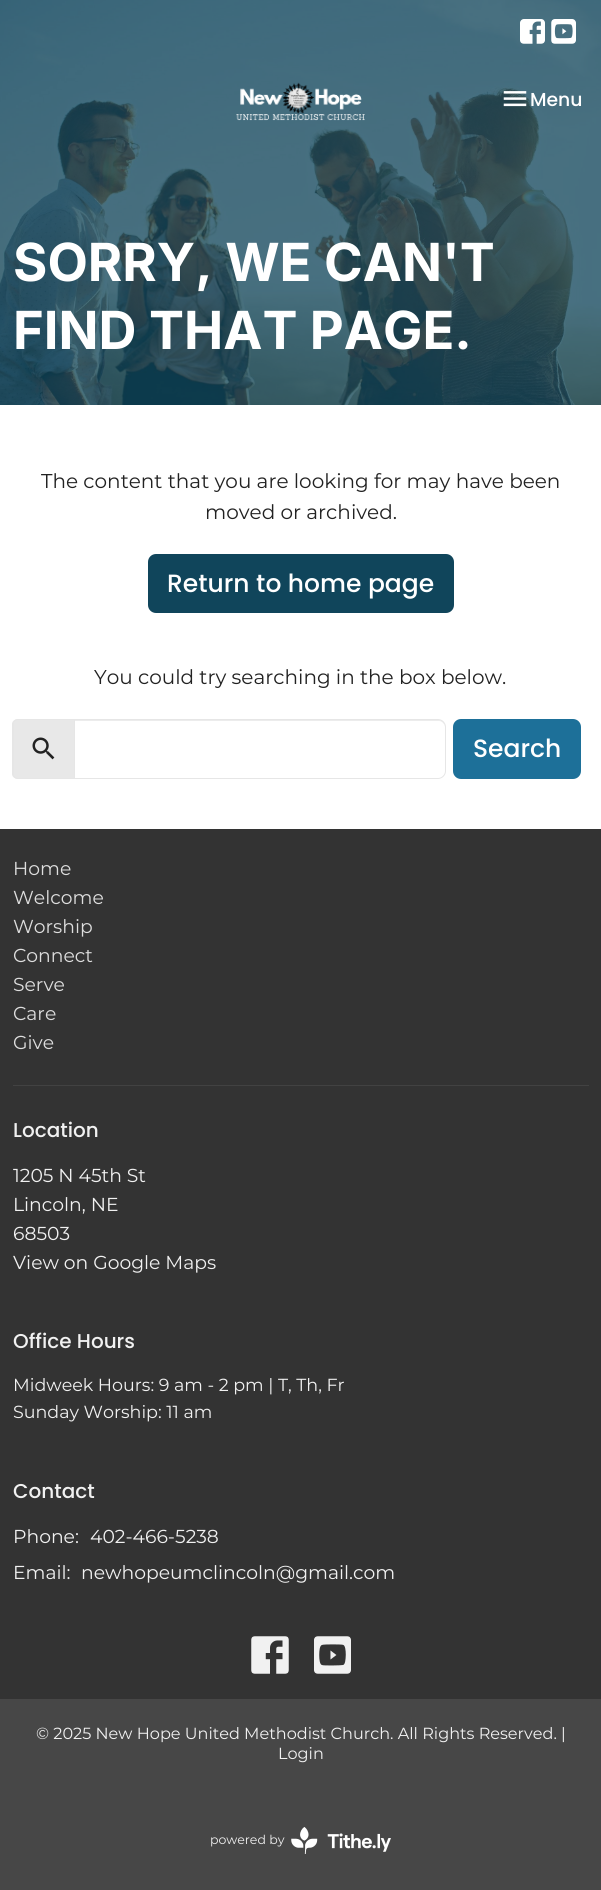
import math
import cairo

surface = cairo.ImageSurface(cairo.FORMAT_RGB24, 601, 1890)
ctx = cairo.Context(surface)
options = cairo.FontOptions()
options.set_hint_metrics(cairo.HINT_METRICS_OFF)
options.set_hint_style(cairo.HINT_STYLE_NONE)
ctx.set_font_options(options)
ctx.set_miter_limit(4)


def round_rect(x, y, w, h, r):
    ctx.new_sub_path()
    for i, (u, v) in enumerate([(x + w - r, y + h - r), (x + r, y + h - r), (x + r, y + r), (x + w - r, y + r)]):
        ctx.arc(u, v, r, i * math.pi / 2, (i + 1) * math.pi / 2)
    ctx.close_path()


def picture(path, x, y, w, h):
    ctx.save()
    ctx.set_source_surface(cairo.ImageSurface.create_from_png(path), x, y)
    ctx.rectangle(x, y, w, h)
    ctx.fill()
    ctx.restore()


ctx.set_source_rgb(1, 1, 1)
ctx.paint()
picture("img5.png", 0, 0, 601, 405)
picture("img1.png", 520, 19, 25, 25)
picture("img2.png", 551, 19, 25, 25)
picture("img3.png", 236, 82, 129, 39)
picture("img4.png", 503, 91, 24, 16)
ctx.select_font_face("Poppins Medium")
ctx.set_font_size(18.75)
ctx.set_source_rgb(1, 1, 1)
ctx.move_to(530, 106)
ctx.show_text("Menu")
ctx.select_font_face("Inter", cairo.FONT_SLANT_NORMAL, cairo.FONT_WEIGHT_BOLD)
ctx.set_font_size(52.5)
ctx.move_to(13, 281)
ctx.show_text("SORRY, WE CAN'T")
ctx.move_to(13, 349)
ctx.show_text("FIND THAT PAGE.")
ctx.select_font_face("Montserrat")
ctx.set_font_size(20)
ctx.set_source_rgb(0.133, 0.133, 0.133)
ctx.move_to(41, 488)
ctx.show_text("The content that you are looking for may have been")
ctx.move_to(205, 519)
ctx.show_text("moved or archived.")
ctx.set_source_rgb(0.063, 0.271, 0.357)
round_rect(148, 554, 306, 59, 8)
ctx.fill()
ctx.select_font_face("Poppins Medium")
ctx.set_font_size(25)
ctx.set_source_rgb(1, 1, 1)
ctx.move_to(167, 592)
ctx.show_text("Return to home page")
ctx.select_font_face("Montserrat")
ctx.set_font_size(20)
ctx.set_source_rgb(0.133, 0.133, 0.133)
ctx.move_to(94, 684)
ctx.show_text("You could try searching in the box below.")
ctx.set_source_rgb(0.91, 0.91, 0.91)
ctx.new_path()
ctx.move_to(18, 719)
ctx.line_to(74, 719)
ctx.line_to(74, 779)
ctx.line_to(18, 779)
ctx.curve_to(15, 779, 13, 777, 13, 774)
ctx.line_to(13, 724)
ctx.curve_to(13, 721, 15, 719, 18, 719)
ctx.close_path()
ctx.fill()
ctx.set_source_rgb(0.902, 0.902, 0.902)
ctx.set_fill_rule(cairo.FILL_RULE_EVEN_ODD)
ctx.new_path()
ctx.move_to(18, 719)
ctx.line_to(74, 719)
ctx.line_to(74, 779)
ctx.line_to(18, 779)
ctx.curve_to(15, 779, 12, 777, 12, 774)
ctx.line_to(12, 724)
ctx.curve_to(12, 721, 15, 719, 18, 719)
ctx.close_path()
ctx.move_to(18, 720)
ctx.line_to(74, 720)
ctx.line_to(74, 778)
ctx.line_to(18, 778)
ctx.curve_to(15, 778, 14, 776, 14, 774)
ctx.line_to(14, 724)
ctx.curve_to(14, 722, 15, 720, 18, 720)
ctx.close_path()
ctx.fill()
picture("img6.png", 32, 737, 23, 23)
ctx.set_source_rgb(0.925, 0.925, 0.925)
ctx.set_fill_rule(cairo.FILL_RULE_WINDING)
ctx.new_path()
ctx.move_to(75, 721)
ctx.line_to(439, 721)
ctx.curve_to(442, 721, 445, 724, 445, 728)
ctx.curve_to(445, 724, 444, 720, 439, 720)
ctx.line_to(75, 720)
ctx.close_path()
ctx.fill()
ctx.new_path()
ctx.move_to(74.5, 719.5)
ctx.line_to(438, 719.5)
ctx.curve_to(442, 719.5, 445.5, 723, 445.5, 727)
ctx.line_to(445.5, 771)
ctx.curve_to(445.5, 775, 442, 778.5, 438, 778.5)
ctx.line_to(74.5, 778.5)
ctx.close_path()
ctx.set_source_rgb(0.902, 0.902, 0.902)
ctx.set_line_width(1)
ctx.stroke()
ctx.set_source_rgb(0.114, 0.439, 0.6)
round_rect(453, 719, 128, 60, 8)
ctx.fill()
ctx.select_font_face("Poppins Medium")
ctx.set_font_size(25)
ctx.set_source_rgb(1, 1, 1)
ctx.move_to(473, 757)
ctx.show_text("Search")
ctx.set_source_rgb(0.2, 0.2, 0.2)
ctx.rectangle(0, 829, 601, 870)
ctx.fill()
ctx.select_font_face("Montserrat")
ctx.set_font_size(18.75)
ctx.set_source_rgb(0.871, 0.871, 0.871)
ctx.move_to(13, 875)
ctx.show_text("Home")
ctx.move_to(13, 904)
ctx.show_text("Welcome")
ctx.move_to(13, 933)
ctx.show_text("Worship")
ctx.move_to(13, 962)
ctx.show_text("Connect")
ctx.move_to(13, 991)
ctx.show_text("Serve")
ctx.move_to(13, 1020)
ctx.show_text("Care")
ctx.move_to(13, 1049)
ctx.show_text("Give")
ctx.set_source_rgb(0.259, 0.259, 0.259)
ctx.rectangle(13, 1085, 576, 1)
ctx.fill()
ctx.select_font_face("Poppins Medium")
ctx.set_font_size(20)
ctx.set_source_rgb(0.945, 0.945, 0.945)
ctx.move_to(13, 1137)
ctx.show_text("Location")
ctx.select_font_face("Montserrat")
ctx.set_font_size(18.75)
ctx.move_to(13, 1182)
ctx.show_text("1205 N 45th St")
ctx.move_to(13, 1211)
ctx.show_text("Lincoln, NE")
ctx.move_to(13, 1240)
ctx.show_text("68503")
ctx.move_to(13, 1269)
ctx.show_text("View on Google Maps")
ctx.select_font_face("Poppins Medium")
ctx.set_font_size(20)
ctx.move_to(13, 1348)
ctx.show_text("Office Hours")
ctx.select_font_face("Montserrat")
ctx.set_font_size(17.5)
ctx.move_to(13, 1391)
ctx.show_text("Midweek Hours: 9 am - 2 pm | T, Th, Fr")
ctx.move_to(13, 1418)
ctx.show_text("Sunday Worship: 11 am")
ctx.select_font_face("Poppins Medium")
ctx.set_font_size(20)
ctx.move_to(13, 1498)
ctx.show_text("Contact")
ctx.select_font_face("Montserrat")
ctx.set_font_size(18.75)
ctx.move_to(13, 1543)
ctx.show_text("Phone:")
ctx.move_to(90, 1543)
ctx.show_text("402-466-5238")
ctx.move_to(13, 1579)
ctx.show_text("Email:")
ctx.move_to(81, 1579)
ctx.show_text("newhopeumclincoln@gmail.com")
picture("img7.png", 251, 1636, 38, 38)
picture("img8.png", 314, 1636, 37, 38)
ctx.set_source_rgb(0.278, 0.278, 0.278)
ctx.rectangle(0, 1699, 601, 191)
ctx.fill()
ctx.set_font_size(16.1)
ctx.set_source_rgb(0.945, 0.945, 0.945)
ctx.move_to(36, 1739)
ctx.show_text("© 2025 New Hope United Methodist Church. All Rights Reserved. |")
ctx.move_to(278, 1759)
ctx.show_text("Login")
ctx.set_font_size(12.5)
ctx.move_to(210, 1844)
ctx.show_text("powered by")
picture("img9.png", 291, 1827, 100, 27)
surface.write_to_png("page.png")
